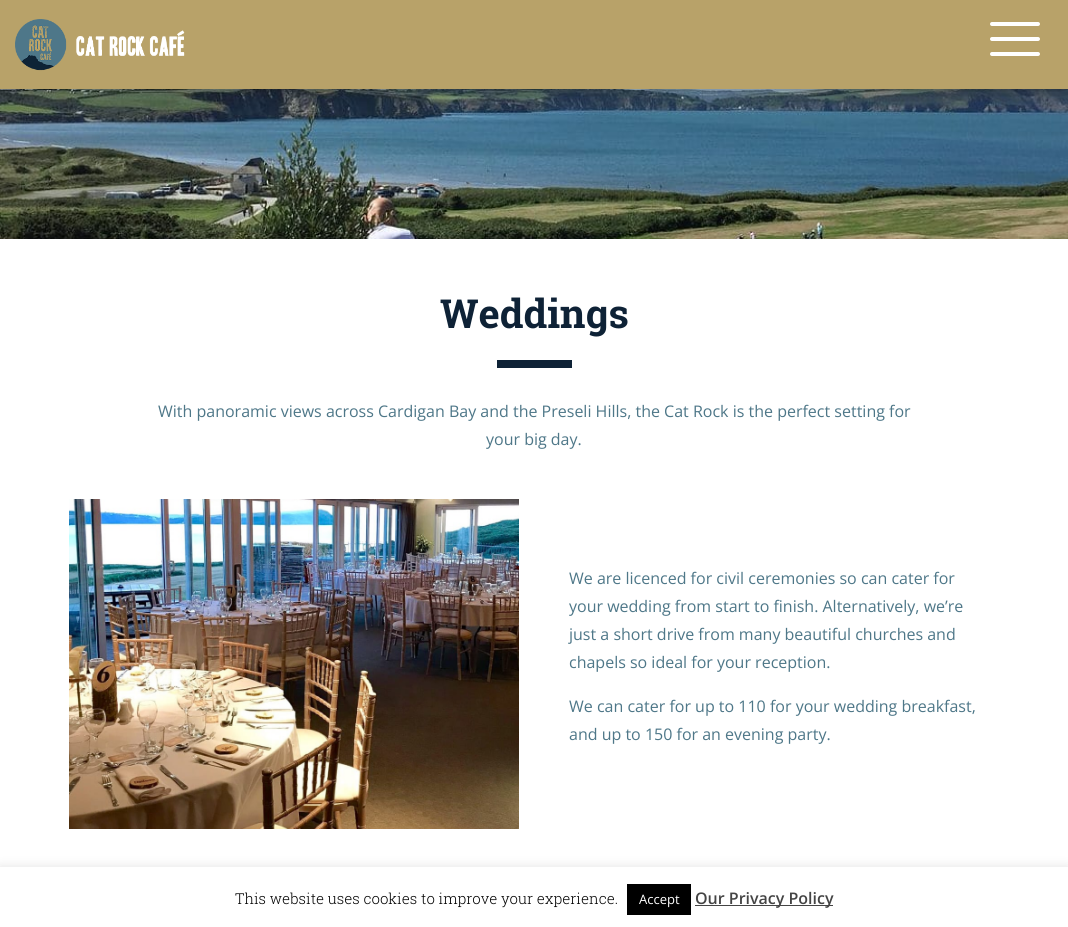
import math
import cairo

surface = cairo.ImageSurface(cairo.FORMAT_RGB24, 1068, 927)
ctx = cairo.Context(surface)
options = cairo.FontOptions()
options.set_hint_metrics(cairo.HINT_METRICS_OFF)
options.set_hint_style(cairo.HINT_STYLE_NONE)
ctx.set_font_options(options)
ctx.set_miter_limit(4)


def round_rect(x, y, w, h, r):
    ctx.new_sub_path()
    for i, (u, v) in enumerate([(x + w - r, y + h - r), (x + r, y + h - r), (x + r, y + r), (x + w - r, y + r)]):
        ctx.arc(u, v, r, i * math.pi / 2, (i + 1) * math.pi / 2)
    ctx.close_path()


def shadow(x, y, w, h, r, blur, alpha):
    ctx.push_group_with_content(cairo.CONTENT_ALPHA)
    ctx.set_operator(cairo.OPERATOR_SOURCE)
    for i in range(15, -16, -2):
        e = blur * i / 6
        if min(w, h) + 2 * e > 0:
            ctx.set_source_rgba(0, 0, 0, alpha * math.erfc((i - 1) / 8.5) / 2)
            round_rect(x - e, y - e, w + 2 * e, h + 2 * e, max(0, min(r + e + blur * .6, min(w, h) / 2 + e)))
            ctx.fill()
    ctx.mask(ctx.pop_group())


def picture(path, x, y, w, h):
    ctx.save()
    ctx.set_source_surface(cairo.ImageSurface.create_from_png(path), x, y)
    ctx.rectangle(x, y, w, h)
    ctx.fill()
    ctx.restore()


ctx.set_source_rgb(1, 1, 1)
ctx.paint()
picture("img2.png", 0, 89, 1068, 150)
ctx.set_source_rgb(0, 0, 0)
shadow(0, -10, 1068, 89, 0, 15, 1)
ctx.set_source_rgb(0.722, 0.635, 0.412)
ctx.rectangle(0, 0, 1068, 89)
ctx.fill()
picture("img1.png", 15, 19, 170, 52)
ctx.set_source_rgb(1, 1, 1)
round_rect(990, 22, 50, 4, 2)
ctx.fill()
round_rect(990, 37, 50, 4, 2)
ctx.fill()
round_rect(990, 52, 50, 4, 2)
ctx.fill()
ctx.select_font_face("Roboto Slab", cairo.FONT_SLANT_NORMAL, cairo.FONT_WEIGHT_BOLD)
ctx.set_font_size(40)
ctx.set_source_rgb(0.055, 0.133, 0.212)
ctx.move_to(440, 328)
ctx.show_text("Weddings")
ctx.rectangle(497, 360, 75, 8)
ctx.fill()
ctx.select_font_face("Open Sans")
ctx.set_font_size(16)
ctx.set_source_rgb(0.306, 0.467, 0.533)
ctx.move_to(158, 417)
ctx.show_text("With panoramic views across Cardigan Bay and the Preseli Hills, the Cat Rock is the perfect setting for")
ctx.move_to(486, 445)
ctx.show_text("your big day.")
picture("img3.png", 69, 499, 450, 330)
ctx.move_to(569, 584)
ctx.show_text("We are licenced for civil ceremonies so can cater for")
ctx.move_to(569, 612)
ctx.show_text("your wedding from start to finish. Alternatively, we’re")
ctx.move_to(569, 640)
ctx.show_text("just a short drive from many beautiful churches and")
ctx.move_to(569, 668)
ctx.show_text("chapels so ideal for your reception.")
ctx.move_to(569, 712)
ctx.show_text("We can cater for up to 110 for your wedding breakfast,")
ctx.move_to(569, 740)
ctx.show_text("and up to 150 for an evening party.")
ctx.set_source_rgb(0.675, 0.671, 0.671)
shadow(0, 866, 1068, 60, 0, 5, 0.3)
ctx.set_source_rgb(1, 1, 1)
ctx.rectangle(0, 867, 1068, 60)
ctx.fill()
ctx.select_font_face("Roboto Slab Light")
ctx.set_font_size(15)
ctx.set_source_rgb(0, 0, 0)
ctx.move_to(235, 904)
ctx.show_text("This website uses cookies to improve your experience.")
ctx.rectangle(627, 884, 64, 31)
ctx.fill()
ctx.select_font_face("Open Sans")
ctx.set_font_size(13)
ctx.set_source_rgb(1, 1, 1)
ctx.move_to(639, 904)
ctx.show_text("Accept")
ctx.set_source_rgb(0.267, 0.267, 0.267)
ctx.rectangle(695, 905, 138, 1)
ctx.fill()
ctx.select_font_face("Open Sans SemiBold")
ctx.set_font_size(16)
ctx.move_to(695, 904)
ctx.show_text("Our Privacy Policy")
surface.write_to_png("page.png")
